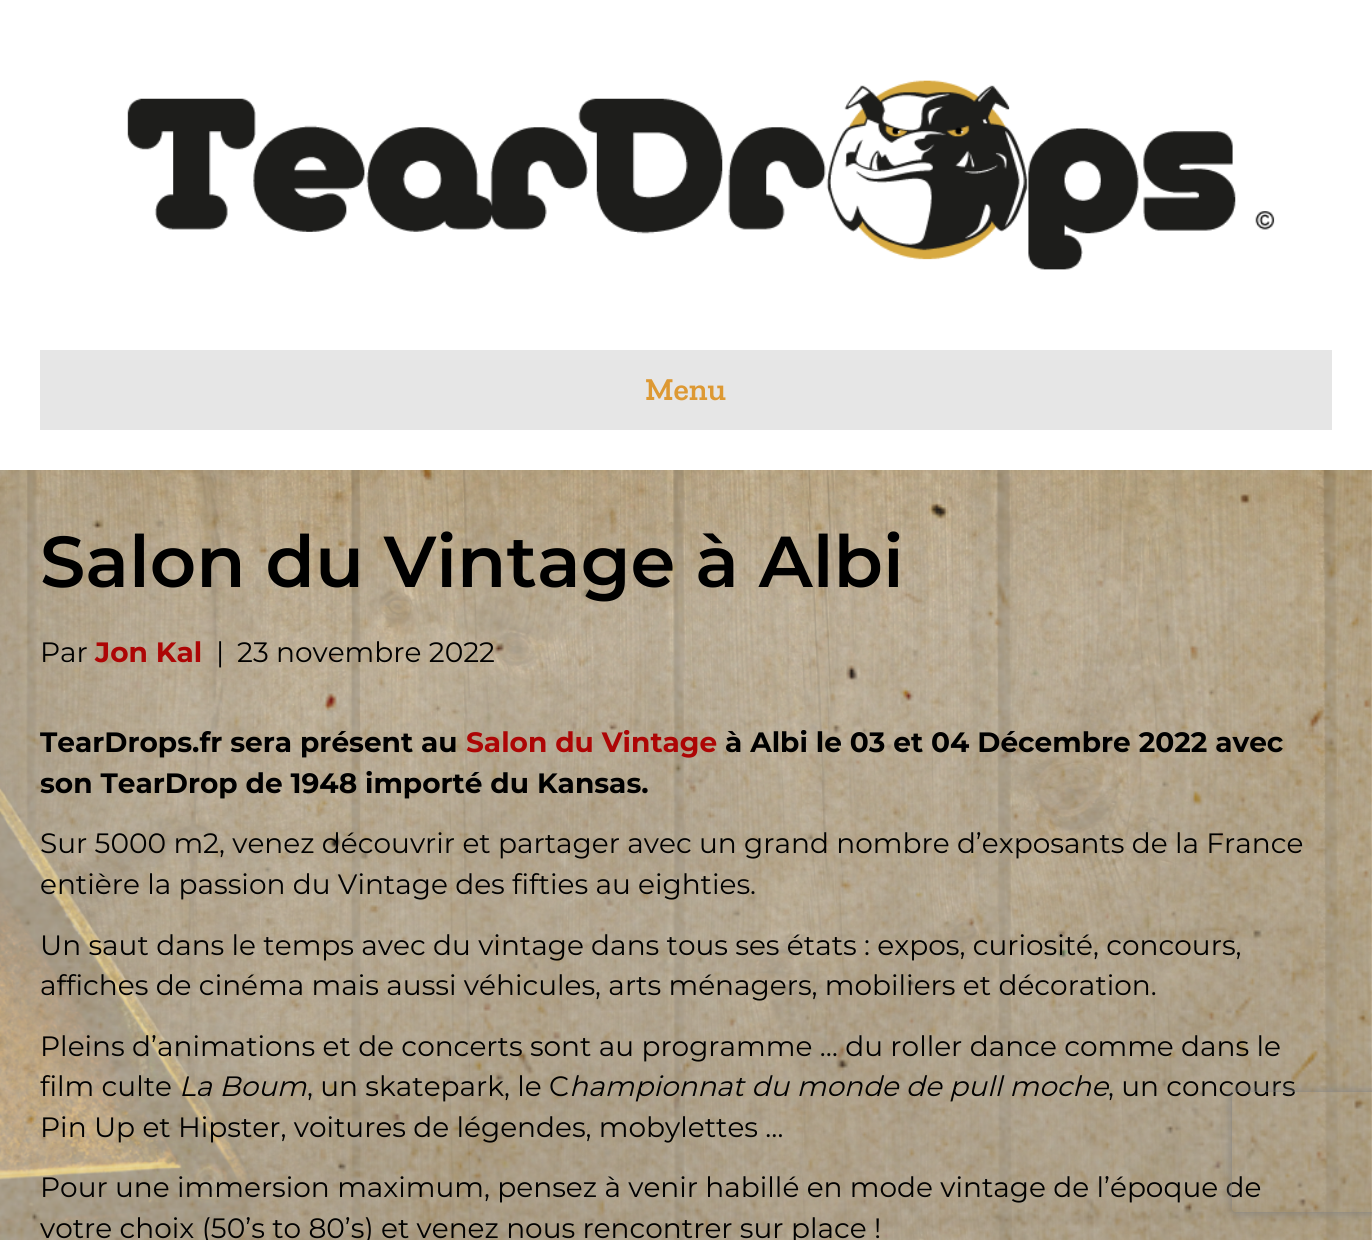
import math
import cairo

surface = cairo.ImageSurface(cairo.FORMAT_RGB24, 1372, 1240)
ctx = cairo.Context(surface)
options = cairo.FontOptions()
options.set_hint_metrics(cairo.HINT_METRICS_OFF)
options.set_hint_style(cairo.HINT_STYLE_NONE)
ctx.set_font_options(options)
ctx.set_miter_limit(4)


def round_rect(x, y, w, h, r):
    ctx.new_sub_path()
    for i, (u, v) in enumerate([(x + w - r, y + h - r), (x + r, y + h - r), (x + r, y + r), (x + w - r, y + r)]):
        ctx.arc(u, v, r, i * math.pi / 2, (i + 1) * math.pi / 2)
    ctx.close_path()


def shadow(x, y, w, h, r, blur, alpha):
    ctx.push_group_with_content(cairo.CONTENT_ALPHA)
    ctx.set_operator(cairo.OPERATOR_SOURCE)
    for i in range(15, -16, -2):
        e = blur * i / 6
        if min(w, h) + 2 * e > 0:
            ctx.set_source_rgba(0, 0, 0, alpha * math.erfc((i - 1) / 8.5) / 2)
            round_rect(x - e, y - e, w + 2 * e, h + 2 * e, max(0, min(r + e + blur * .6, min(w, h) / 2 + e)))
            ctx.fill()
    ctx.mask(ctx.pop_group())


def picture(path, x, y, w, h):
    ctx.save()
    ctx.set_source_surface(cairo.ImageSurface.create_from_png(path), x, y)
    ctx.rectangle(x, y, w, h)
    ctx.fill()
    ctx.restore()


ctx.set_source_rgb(1, 1, 1)
ctx.paint()
picture("img1.png", 0, 470, 1372, 770)
picture("img2.png", 127, 80, 1148, 190)
ctx.set_source_rgb(0.902, 0.902, 0.902)
ctx.rectangle(40, 350, 1292, 80)
ctx.fill()
ctx.select_font_face("Zilla Slab SemiBold")
ctx.set_font_size(32)
ctx.set_source_rgb(0.867, 0.6, 0.2)
ctx.move_to(645, 400)
ctx.show_text("Menu")
ctx.set_source_rgba(1, 1, 1, 0.09)
ctx.rectangle(0, 470, 1372, 770)
ctx.fill()
picture("img3.png", 0, 470, 1372, 770)
ctx.select_font_face("Montserrat SemiBold")
ctx.set_font_size(72)
ctx.set_source_rgb(0, 0, 0)
ctx.move_to(40, 587)
ctx.show_text("Salon du Vintage à Albi")
ctx.select_font_face("Montserrat")
ctx.set_font_size(28)
ctx.move_to(40, 662)
ctx.show_text("Par")
ctx.select_font_face("Montserrat", cairo.FONT_SLANT_NORMAL, cairo.FONT_WEIGHT_BOLD)
ctx.set_source_rgb(0.678, 0.02, 0.02)
ctx.move_to(95, 662)
ctx.show_text("Jon Kal")
ctx.select_font_face("Montserrat")
ctx.set_source_rgb(0, 0, 0)
ctx.move_to(216, 662)
ctx.show_text("|")
ctx.move_to(237, 662)
ctx.show_text("23 novembre 2022")
ctx.select_font_face("Montserrat", cairo.FONT_SLANT_NORMAL, cairo.FONT_WEIGHT_BOLD)
ctx.move_to(40, 752)
ctx.show_text("TearDrops.fr sera présent au")
ctx.set_source_rgb(0.678, 0.02, 0.02)
ctx.move_to(466, 752)
ctx.show_text("Salon du Vintage")
ctx.set_source_rgb(0, 0, 0)
ctx.move_to(725, 752)
ctx.show_text("à Albi le 03 et 04 Décembre 2022 avec")
ctx.move_to(40, 793)
ctx.show_text("son TearDrop de 1948 importé du Kansas.")
ctx.select_font_face("Montserrat")
ctx.move_to(40, 853)
ctx.show_text("Sur 5000 m2, venez découvrir et partager avec un grand nombre d’exposants de la France")
ctx.move_to(40, 894)
ctx.show_text("entière la passion du Vintage des fifties au eighties.")
ctx.move_to(40, 955)
ctx.show_text("Un saut dans le temps avec du vintage dans tous ses états : expos, curiosité, concours,")
ctx.move_to(40, 995)
ctx.show_text("affiches de cinéma mais aussi véhicules, arts ménagers, mobiliers et décoration.")
ctx.move_to(40, 1056)
ctx.show_text("Pleins d’animations et de concerts sont au programme … du roller dance comme dans le")
ctx.move_to(40, 1096)
ctx.show_text("film culte")
ctx.select_font_face("Montserrat", cairo.FONT_SLANT_ITALIC)
ctx.move_to(179, 1096)
ctx.show_text("La Boum")
ctx.select_font_face("Montserrat")
ctx.move_to(307, 1096)
ctx.show_text(", un skatepark, le C")
ctx.select_font_face("Montserrat", cairo.FONT_SLANT_ITALIC)
ctx.move_to(569, 1096)
ctx.show_text("hampionnat du monde de pull moche")
ctx.select_font_face("Montserrat")
ctx.move_to(1108, 1096)
ctx.show_text(", un concours")
ctx.move_to(40, 1137)
ctx.show_text("Pin Up et Hipster, voitures de légendes, mobylettes …")
ctx.move_to(40, 1197)
ctx.show_text("Pour une immersion maximum, pensez à venir habillé en mode vintage de l’époque de")
ctx.move_to(40, 1238)
ctx.show_text("votre choix (50’s to 80’s) et venez nous rencontrer sur place !")
ctx.save()
ctx.set_fill_rule(cairo.FILL_RULE_EVEN_ODD)
ctx.new_path()
ctx.move_to(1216, 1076)
ctx.line_to(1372, 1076)
ctx.line_to(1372, 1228)
ctx.line_to(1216, 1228)
ctx.close_path()
ctx.move_to(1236, 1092)
ctx.line_to(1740, 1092)
ctx.curve_to(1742, 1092, 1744, 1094, 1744, 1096)
ctx.line_to(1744, 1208)
ctx.curve_to(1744, 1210, 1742, 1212, 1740, 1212)
ctx.line_to(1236, 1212)
ctx.curve_to(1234, 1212, 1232, 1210, 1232, 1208)
ctx.line_to(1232, 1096)
ctx.curve_to(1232, 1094, 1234, 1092, 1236, 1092)
ctx.close_path()
ctx.clip()
ctx.set_source_rgb(0.502, 0.502, 0.502)
shadow(1232, 1092, 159, 120, 4, 5, 1)
ctx.restore()
surface.write_to_png("page.png")
